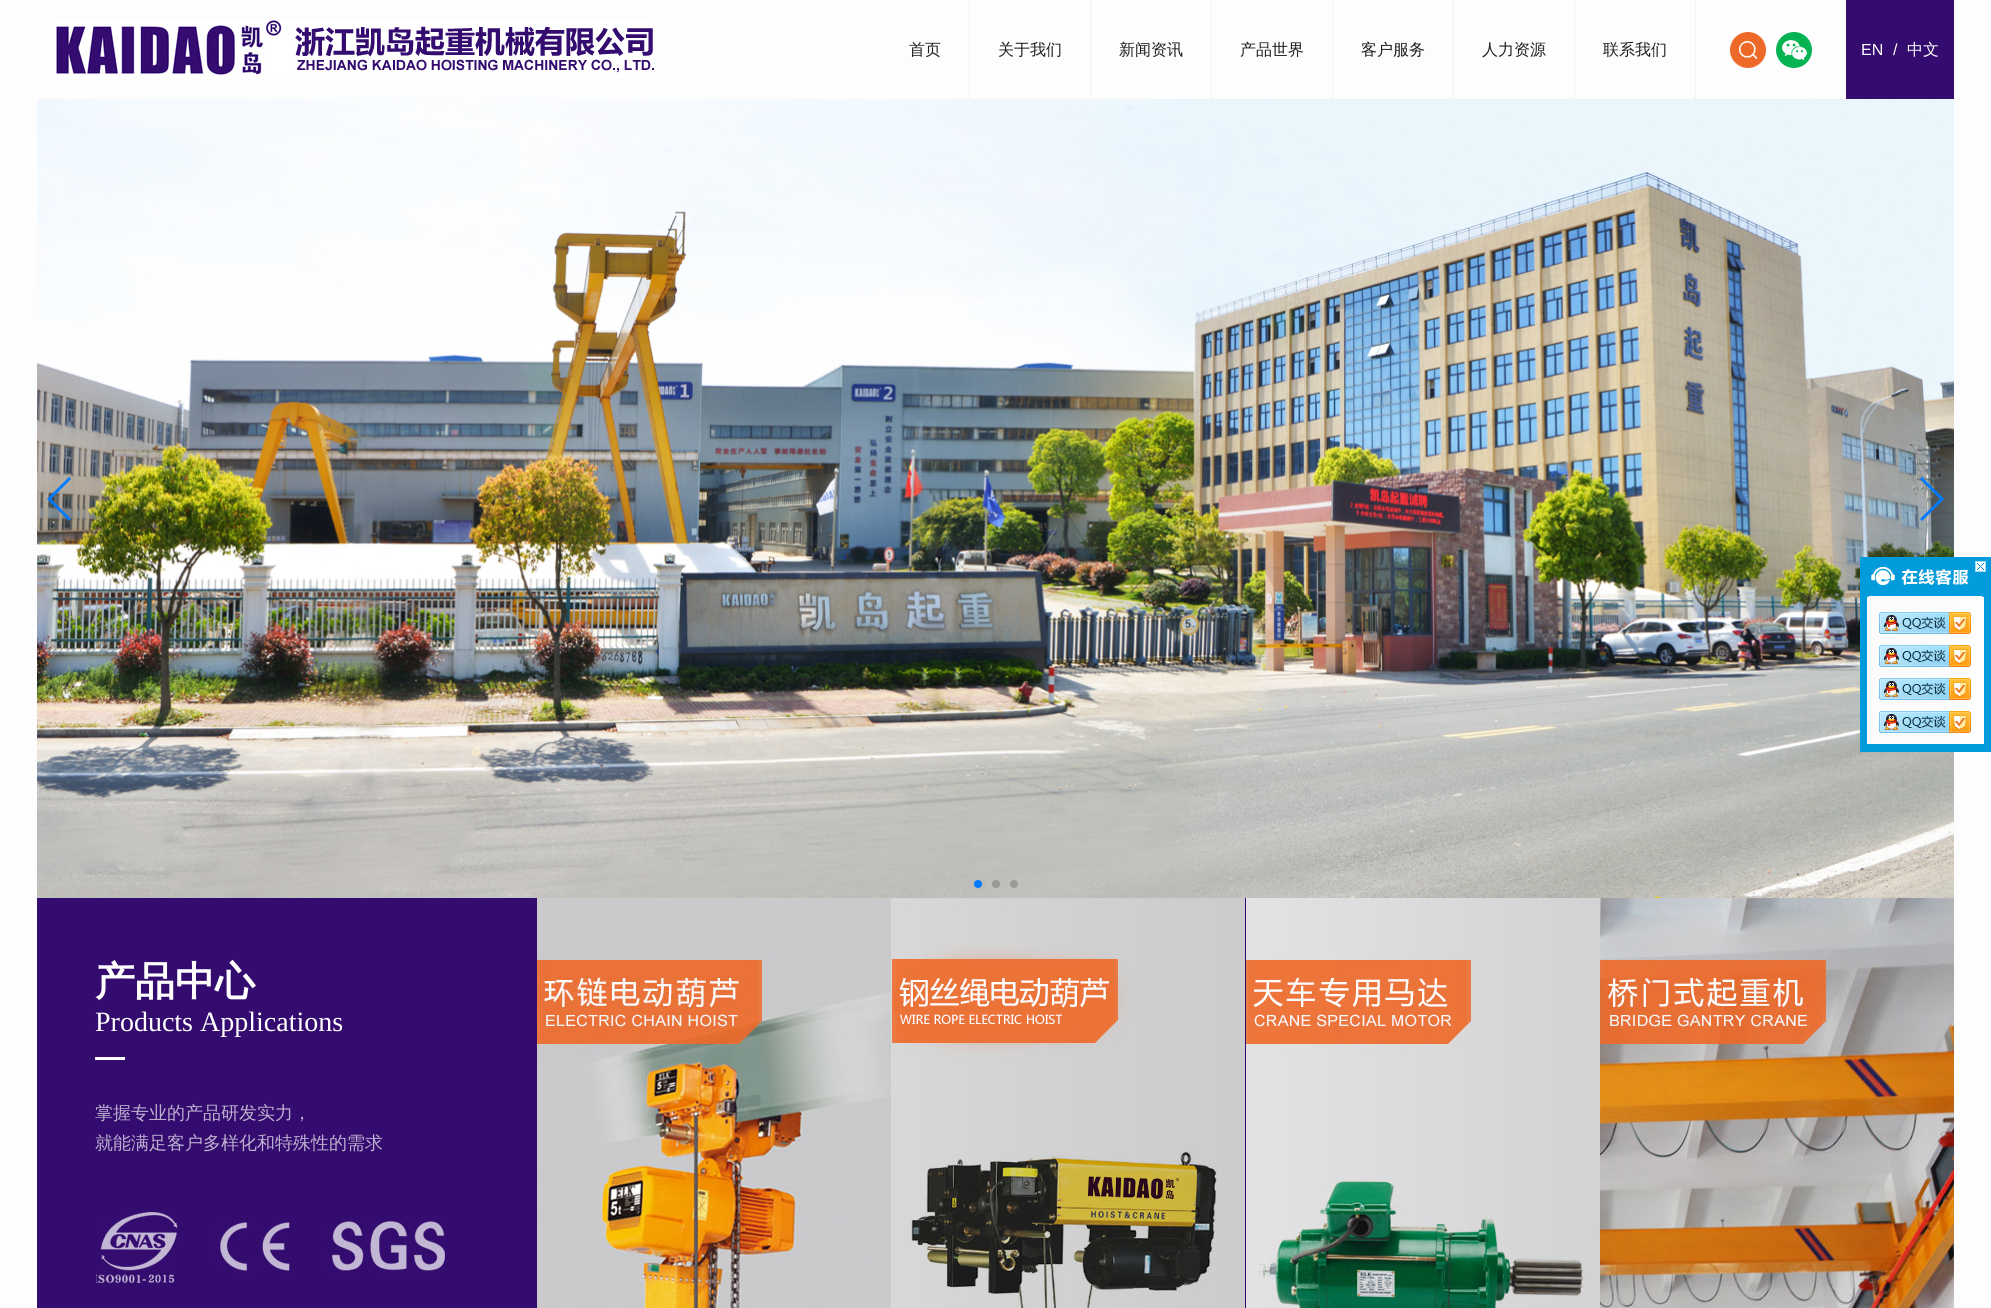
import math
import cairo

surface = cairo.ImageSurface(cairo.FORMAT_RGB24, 1991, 1308)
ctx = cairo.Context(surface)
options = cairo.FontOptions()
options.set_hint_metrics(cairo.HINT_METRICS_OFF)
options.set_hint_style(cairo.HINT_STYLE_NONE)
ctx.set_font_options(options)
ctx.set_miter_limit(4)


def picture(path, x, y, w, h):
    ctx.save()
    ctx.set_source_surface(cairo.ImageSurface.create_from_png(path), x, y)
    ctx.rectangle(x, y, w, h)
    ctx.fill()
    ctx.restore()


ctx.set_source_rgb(0.992, 0.992, 0.992)
ctx.paint()
picture("img1.png", 56, 20, 598, 59)
ctx.set_source_rgb(0.949, 0.949, 0.949)
ctx.rectangle(969, 0, 1, 99)
ctx.fill()
ctx.select_font_face("WenQuanYi Zen Hei Medium")
ctx.set_font_size(16)
ctx.set_source_rgb(0.118, 0.118, 0.118)
ctx.move_to(909, 55)
ctx.show_text("首页")
ctx.set_source_rgb(0.949, 0.949, 0.949)
ctx.rectangle(1090, 0, 1, 99)
ctx.fill()
ctx.set_source_rgb(0.118, 0.118, 0.118)
ctx.move_to(998, 55)
ctx.show_text("关于我们")
ctx.set_source_rgb(0.949, 0.949, 0.949)
ctx.rectangle(1211, 0, 1, 99)
ctx.fill()
ctx.set_source_rgb(0.118, 0.118, 0.118)
ctx.move_to(1119, 55)
ctx.show_text("新闻资讯")
ctx.set_source_rgb(0.949, 0.949, 0.949)
ctx.rectangle(1332, 0, 1, 99)
ctx.fill()
ctx.set_source_rgb(0.118, 0.118, 0.118)
ctx.move_to(1240, 55)
ctx.show_text("产品世界")
ctx.set_source_rgb(0.949, 0.949, 0.949)
ctx.rectangle(1453, 0, 1, 99)
ctx.fill()
ctx.set_source_rgb(0.118, 0.118, 0.118)
ctx.move_to(1361, 55)
ctx.show_text("客户服务")
ctx.set_source_rgb(0.949, 0.949, 0.949)
ctx.rectangle(1574, 0, 1, 99)
ctx.fill()
ctx.set_source_rgb(0.118, 0.118, 0.118)
ctx.move_to(1482, 55)
ctx.show_text("人力资源")
ctx.set_source_rgb(0.949, 0.949, 0.949)
ctx.rectangle(1695, 0, 1, 99)
ctx.fill()
ctx.set_source_rgb(0.118, 0.118, 0.118)
ctx.move_to(1603, 55)
ctx.show_text("联系我们")
picture("img2.png", 1730, 32, 36, 36)
picture("img3.png", 1776, 32, 36, 36)
ctx.set_source_rgb(0.204, 0.047, 0.439)
ctx.rectangle(1846, 0, 108, 99)
ctx.fill()
ctx.select_font_face("Liberation Sans")
ctx.set_source_rgb(1, 1, 1)
ctx.move_to(1861, 55)
ctx.show_text("EN")
ctx.move_to(1893, 55)
ctx.show_text("/")
ctx.select_font_face("WenQuanYi Zen Hei Medium")
ctx.move_to(1907, 55)
ctx.show_text("中文")
picture("img4.png", 37, 99, 1917, 799)
ctx.set_source_rgb(0, 0.478, 1)
ctx.new_path()
ctx.move_to(47, 499)
ctx.line_to(69, 477)
ctx.line_to(71, 479)
ctx.line_to(51, 499)
ctx.line_to(71, 519)
ctx.line_to(69, 521)
ctx.close_path()
ctx.fill()
ctx.new_path()
ctx.move_to(1944, 499)
ctx.line_to(1922, 521)
ctx.line_to(1920, 519)
ctx.line_to(1940, 499)
ctx.line_to(1920, 479)
ctx.line_to(1922, 477)
ctx.close_path()
ctx.fill()
ctx.arc(978, 884, 4, 0, 2 * math.pi)
ctx.fill()
ctx.set_source_rgba(0, 0, 0, 0.2)
ctx.arc(996, 884, 4, 0, 2 * math.pi)
ctx.fill()
ctx.arc(1014, 884, 4, 0, 2 * math.pi)
ctx.fill()
ctx.set_source_rgb(0.204, 0.047, 0.439)
ctx.rectangle(37, 898, 1209, 410)
ctx.fill()
ctx.select_font_face("WenQuanYi Zen Hei", cairo.FONT_SLANT_NORMAL, cairo.FONT_WEIGHT_BOLD)
ctx.set_font_size(40)
ctx.set_source_rgb(1, 1, 1)
ctx.move_to(95, 995)
ctx.show_text("产品中心")
ctx.select_font_face("Liberation Serif")
ctx.set_font_size(28)
ctx.move_to(95, 1031)
ctx.show_text("Products Applications")
ctx.rectangle(95, 1057, 30, 3)
ctx.fill()
ctx.select_font_face("WenQuanYi Zen Hei Medium")
ctx.set_font_size(18)
ctx.set_source_rgb(0.741, 0.694, 0.812)
ctx.move_to(95, 1119)
ctx.show_text("掌握专业的产品研发实力，")
ctx.move_to(95, 1149)
ctx.show_text("就能满足客户多样化和特殊性的需求")
picture("img5.png", 96, 1212, 349, 71)
picture("img6.png", 537, 898, 354, 410)
picture("img7.png", 891, 898, 354, 410)
picture("img8.png", 1246, 898, 354, 410)
picture("img9.png", 1600, 898, 354, 410)
picture("img10.png", 1860, 557, 131, 40)
picture("img11.png", 1975, 561, 11, 11)
ctx.set_source_rgb(0.984, 0.984, 0.984)
ctx.rectangle(1867, 597, 87, 147)
ctx.fill()
ctx.set_source_rgb(0.008, 0.608, 0.859)
ctx.rectangle(1984, 597, 7, 147)
ctx.fill()
ctx.rectangle(1860, 597, 7, 147)
ctx.fill()
picture("img12.png", 1879, 612, 92, 22)
picture("img12.png", 1879, 645, 92, 22)
picture("img12.png", 1879, 678, 92, 22)
picture("img12.png", 1879, 711, 92, 22)
ctx.rectangle(1860, 744, 131, 8)
ctx.fill()
surface.write_to_png("page.png")
